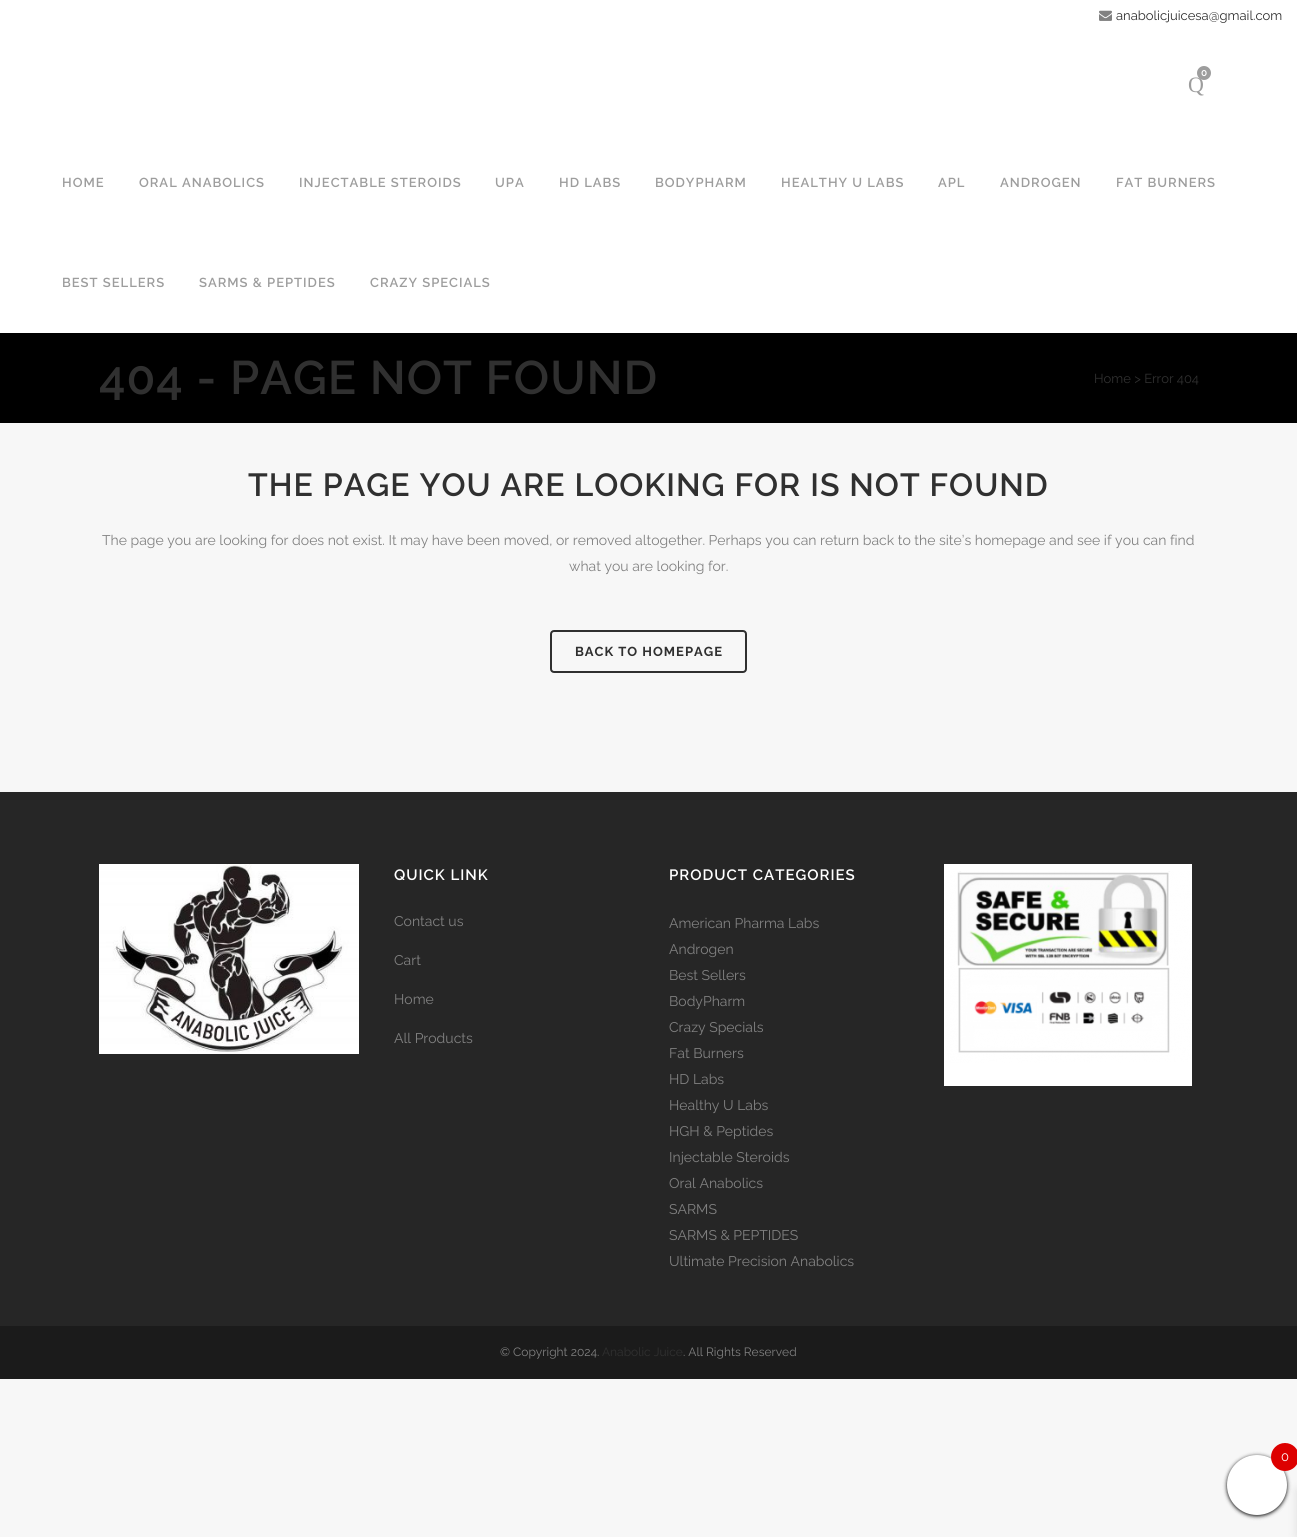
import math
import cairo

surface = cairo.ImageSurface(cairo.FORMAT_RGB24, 1297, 1537)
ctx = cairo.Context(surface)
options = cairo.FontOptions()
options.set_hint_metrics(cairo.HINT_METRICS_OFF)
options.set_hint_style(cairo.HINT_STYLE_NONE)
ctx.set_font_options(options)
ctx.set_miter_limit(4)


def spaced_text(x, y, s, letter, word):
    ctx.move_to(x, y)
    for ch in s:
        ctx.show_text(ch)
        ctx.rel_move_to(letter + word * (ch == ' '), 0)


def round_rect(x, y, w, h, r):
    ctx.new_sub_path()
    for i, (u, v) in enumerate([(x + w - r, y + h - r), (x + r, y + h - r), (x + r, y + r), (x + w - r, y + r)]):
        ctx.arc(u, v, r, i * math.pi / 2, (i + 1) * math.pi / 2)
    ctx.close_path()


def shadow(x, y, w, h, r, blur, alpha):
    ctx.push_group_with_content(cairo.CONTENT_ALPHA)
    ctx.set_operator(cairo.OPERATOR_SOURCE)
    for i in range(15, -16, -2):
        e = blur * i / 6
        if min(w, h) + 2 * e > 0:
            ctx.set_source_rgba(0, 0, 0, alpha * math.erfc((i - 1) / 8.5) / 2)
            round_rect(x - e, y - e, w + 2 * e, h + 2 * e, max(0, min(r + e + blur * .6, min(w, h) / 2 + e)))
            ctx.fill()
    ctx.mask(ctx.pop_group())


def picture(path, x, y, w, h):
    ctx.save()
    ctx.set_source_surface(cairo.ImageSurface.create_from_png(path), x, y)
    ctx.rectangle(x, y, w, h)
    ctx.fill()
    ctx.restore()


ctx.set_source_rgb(0.965, 0.965, 0.965)
ctx.paint()
ctx.set_source_rgb(1, 1, 1)
ctx.rectangle(0, 0, 1297, 333)
ctx.fill()
picture("img1.png", 1099, 10, 13, 11)
ctx.select_font_face("Raleway")
ctx.set_font_size(13)
ctx.set_source_rgb(0.188, 0.188, 0.188)
ctx.move_to(1116, 20)
ctx.show_text("anabolicjuicesa@gmail.com")
ctx.set_source_rgb(0.616, 0.616, 0.616)
ctx.new_path()
ctx.arc(1204, 73, 7, 0, 2 * math.pi)
ctx.fill()
ctx.select_font_face("Raleway SemiBold")
ctx.set_font_size(10)
ctx.set_source_rgb(1, 1, 1)
ctx.move_to(1201, 76)
ctx.show_text("0")
ctx.select_font_face("Liberation Serif")
ctx.set_font_size(22)
ctx.set_source_rgb(0.616, 0.616, 0.616)
ctx.move_to(1188, 92)
ctx.show_text("Q")
ctx.select_font_face("Raleway SemiBold")
ctx.set_font_size(13)
spaced_text(62, 187, "HOME", 1, 0)
spaced_text(139, 187, "ORAL ANABOLICS", 1, 0)
spaced_text(299, 187, "INJECTABLE STEROIDS", 1, 0)
spaced_text(495, 187, "UPA", 1, 0)
spaced_text(559, 187, "HD LABS", 1, 0)
spaced_text(655, 187, "BODYPHARM", 1, 0)
spaced_text(781, 187, "HEALTHY U LABS", 1, 0)
spaced_text(938, 187, "APL", 1, 0)
spaced_text(1000, 187, "ANDROGEN", 1, 0)
spaced_text(1116, 187, "FAT BURNERS", 1, 0)
spaced_text(62, 287, "BEST SELLERS", 1, 0)
spaced_text(199, 287, "SARMS & PEPTIDES", 1, 0)
spaced_text(370, 287, "CRAZY SPECIALS", 1, 0)
ctx.set_source_rgb(0, 0, 0)
ctx.rectangle(0, 333, 1297, 90)
ctx.fill()
ctx.set_font_size(47)
ctx.set_source_rgb(0.188, 0.188, 0.188)
spaced_text(99, 394, "404 - PAGE NOT FOUND", 1, 0)
ctx.select_font_face("Raleway")
ctx.set_font_size(13)
ctx.move_to(1094, 383)
ctx.show_text("Home > Error 404")
ctx.select_font_face("Raleway SemiBold")
ctx.set_font_size(32)
spaced_text(248, 496, "THE PAGE YOU ARE LOOKING FOR IS NOT FOUND", 1, 0)
ctx.select_font_face("Raleway")
ctx.set_font_size(14)
ctx.set_source_rgb(0.506, 0.506, 0.506)
ctx.move_to(102, 545)
ctx.show_text("The page you are looking for does not exist. It may have been moved, or removed altogether. Perhaps you can return back to the site’s homepage and see if you can find")
ctx.move_to(569, 571)
ctx.show_text("what you are looking for.")
round_rect(551, 631, 195, 41, 3)
ctx.set_source_rgb(0.188, 0.188, 0.188)
ctx.stroke()
ctx.select_font_face("Raleway", cairo.FONT_SLANT_NORMAL, cairo.FONT_WEIGHT_BOLD)
ctx.set_font_size(13)
spaced_text(575, 656, "BACK TO HOMEPAGE", 1, 0)
ctx.set_source_rgb(0.149, 0.149, 0.149)
ctx.rectangle(0, 792, 1297, 534)
ctx.fill()
picture("img2.png", 99, 864, 260, 190)
ctx.select_font_face("Raleway SemiBold")
ctx.set_font_size(15)
ctx.set_source_rgb(1, 1, 1)
spaced_text(394, 880, "QUICK LINK", 1, 0)
ctx.select_font_face("Raleway")
ctx.set_font_size(14)
ctx.set_source_rgb(0.506, 0.506, 0.506)
ctx.move_to(394, 926)
ctx.show_text("Contact us")
ctx.move_to(394, 965)
ctx.show_text("Cart")
ctx.move_to(394, 1004)
ctx.show_text("Home")
ctx.move_to(394, 1043)
ctx.show_text("All Products")
ctx.select_font_face("Raleway SemiBold")
ctx.set_font_size(15)
ctx.set_source_rgb(1, 1, 1)
spaced_text(669, 880, "PRODUCT CATEGORIES", 1, 0)
ctx.select_font_face("Raleway")
ctx.set_font_size(14)
ctx.set_source_rgb(0.506, 0.506, 0.506)
ctx.move_to(669, 928)
ctx.show_text("American Pharma Labs")
ctx.move_to(669, 954)
ctx.show_text("Androgen")
ctx.move_to(669, 980)
ctx.show_text("Best Sellers")
ctx.move_to(669, 1006)
ctx.show_text("BodyPharm")
ctx.move_to(669, 1032)
ctx.show_text("Crazy Specials")
ctx.move_to(669, 1058)
ctx.show_text("Fat Burners")
ctx.move_to(669, 1084)
ctx.show_text("HD Labs")
ctx.move_to(669, 1110)
ctx.show_text("Healthy U Labs")
ctx.move_to(669, 1136)
ctx.show_text("HGH & Peptides")
ctx.move_to(669, 1162)
ctx.show_text("Injectable Steroids")
ctx.move_to(669, 1188)
ctx.show_text("Oral Anabolics")
ctx.move_to(669, 1214)
ctx.show_text("SARMS")
ctx.move_to(669, 1240)
ctx.show_text("SARMS & PEPTIDES")
ctx.move_to(669, 1266)
ctx.show_text("Ultimate Precision Anabolics")
picture("img3.png", 944, 864, 248, 222)
ctx.set_source_rgb(0.106, 0.106, 0.106)
ctx.rectangle(0, 1326, 1297, 53)
ctx.fill()
ctx.set_font_size(12)
ctx.set_source_rgb(0.506, 0.506, 0.506)
ctx.move_to(500, 1356)
ctx.show_text("© Copyright 2024.")
ctx.set_source_rgb(0.188, 0.188, 0.188)
ctx.move_to(602, 1356)
ctx.show_text("Anabolic Juice")
ctx.set_source_rgb(0.506, 0.506, 0.506)
ctx.move_to(683, 1356)
ctx.show_text(". All Rights Reserved")
ctx.set_source_rgb(0, 0, 0)
shadow(1227, 1456, 60, 60, 30, 2, 1)
shadow(1297, 1490, 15, 46, 0, 5, 0.1)
ctx.set_source_rgb(1, 1, 1)
ctx.arc(1257, 1485, 30, 0, 2 * math.pi)
ctx.fill()
ctx.set_source_rgb(0.867, 0, 0)
ctx.arc(1285, 1457, 14, 0, 2 * math.pi)
ctx.fill()
ctx.set_font_size(13)
ctx.set_source_rgb(1, 1, 1)
ctx.move_to(1281, 1461)
ctx.show_text("0")
surface.write_to_png("page.png")
